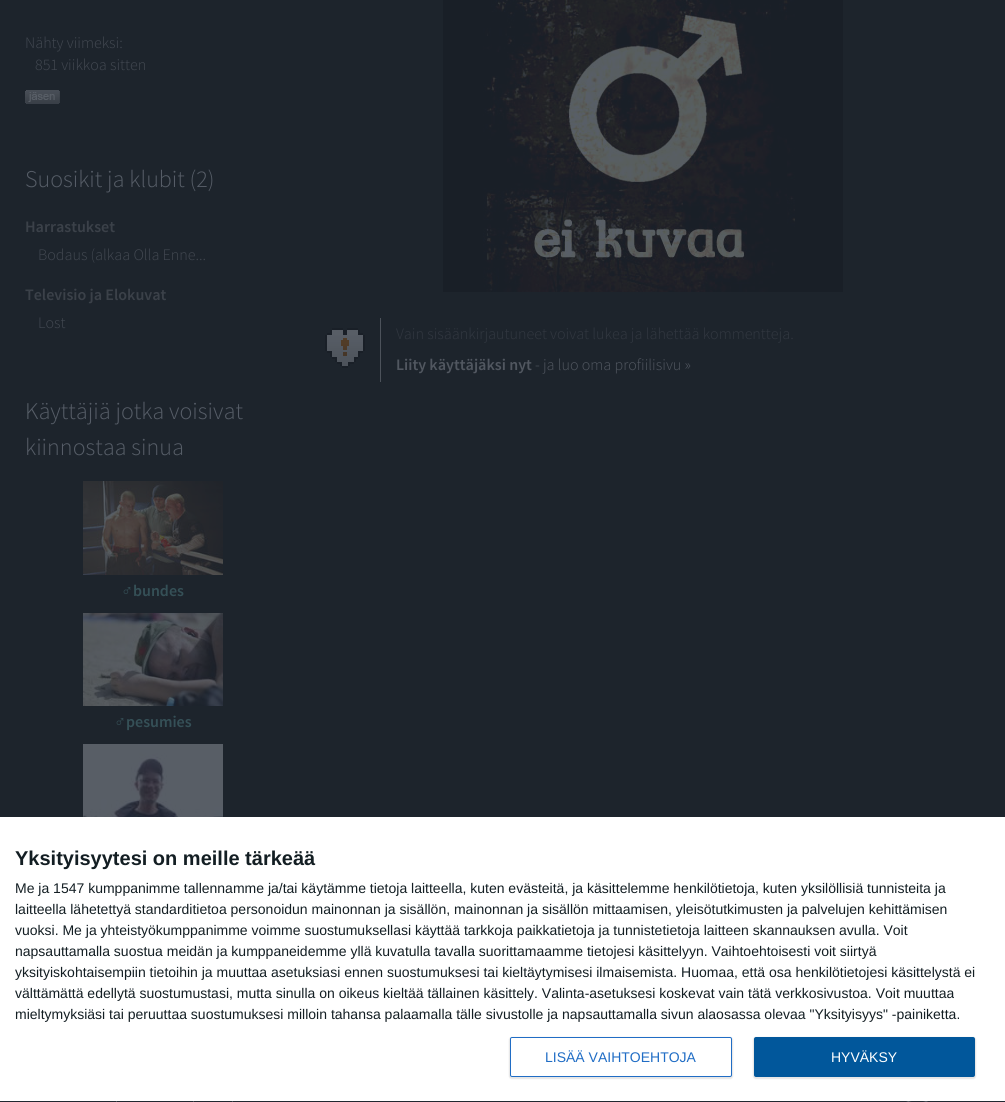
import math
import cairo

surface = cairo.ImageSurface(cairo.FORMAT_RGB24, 1005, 1102)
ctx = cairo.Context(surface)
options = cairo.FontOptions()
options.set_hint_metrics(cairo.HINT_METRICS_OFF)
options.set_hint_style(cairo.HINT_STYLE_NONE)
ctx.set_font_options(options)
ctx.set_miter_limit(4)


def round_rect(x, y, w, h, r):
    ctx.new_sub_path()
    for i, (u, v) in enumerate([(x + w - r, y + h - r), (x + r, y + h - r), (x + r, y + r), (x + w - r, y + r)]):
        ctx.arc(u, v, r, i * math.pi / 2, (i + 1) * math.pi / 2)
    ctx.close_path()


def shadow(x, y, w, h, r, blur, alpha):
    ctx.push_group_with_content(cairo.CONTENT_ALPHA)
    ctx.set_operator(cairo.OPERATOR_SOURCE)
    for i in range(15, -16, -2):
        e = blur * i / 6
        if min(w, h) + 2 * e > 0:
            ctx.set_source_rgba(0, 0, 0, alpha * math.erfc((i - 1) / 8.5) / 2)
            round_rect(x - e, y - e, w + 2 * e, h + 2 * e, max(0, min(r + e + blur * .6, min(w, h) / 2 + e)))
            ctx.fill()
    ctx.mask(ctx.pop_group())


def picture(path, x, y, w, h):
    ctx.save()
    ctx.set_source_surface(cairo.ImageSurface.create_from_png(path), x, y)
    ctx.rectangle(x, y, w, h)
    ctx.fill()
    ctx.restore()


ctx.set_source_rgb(0.114, 0.141, 0.173)
ctx.paint()
ctx.select_font_face("Source Sans Pro Light")
ctx.set_font_size(16)
ctx.set_source_rgb(0.259, 0.282, 0.318)
ctx.move_to(25, 48)
ctx.show_text("Nähty viimeksi:")
ctx.move_to(35, 70)
ctx.show_text("851 viikkoa sitten")
picture("img1.png", 25, 90, 35, 14)
ctx.set_font_size(24)
ctx.set_source_rgb(0.337, 0.365, 0.404)
ctx.move_to(25, 187)
ctx.show_text("Suosikit ja klubit (2)")
ctx.select_font_face("Source Sans Pro SemiBold")
ctx.set_font_size(16)
ctx.set_source_rgb(0.231, 0.255, 0.286)
ctx.move_to(25, 232)
ctx.show_text("Harrastukset")
ctx.select_font_face("Source Sans Pro Light")
ctx.set_source_rgb(0.259, 0.282, 0.318)
ctx.move_to(38, 260)
ctx.show_text("Bodaus (alkaa Olla Enne...")
ctx.select_font_face("Source Sans Pro SemiBold")
ctx.set_source_rgb(0.231, 0.255, 0.286)
ctx.move_to(25, 300)
ctx.show_text("Televisio ja Elokuvat")
ctx.select_font_face("Source Sans Pro Light")
ctx.set_source_rgb(0.259, 0.282, 0.318)
ctx.move_to(38, 328)
ctx.show_text("Lost")
ctx.set_font_size(24)
ctx.set_source_rgb(0.337, 0.365, 0.404)
ctx.move_to(25, 419)
ctx.show_text("Käyttäjiä jotka voisivat")
ctx.move_to(25, 455)
ctx.show_text("kiinnostaa sinua")
picture("img2.png", 83, 481, 140, 94)
ctx.select_font_face("Liberation Sans")
ctx.set_font_size(16)
ctx.set_source_rgb(0.208, 0.314, 0.341)
ctx.move_to(121, 596)
ctx.show_text("♂")
ctx.select_font_face("Source Sans Pro SemiBold")
ctx.move_to(133, 596)
ctx.show_text("bundes")
picture("img3.png", 83, 613, 140, 93)
ctx.select_font_face("Liberation Sans")
ctx.move_to(114, 727)
ctx.show_text("♂")
ctx.select_font_face("Source Sans Pro SemiBold")
ctx.move_to(126, 727)
ctx.show_text("pesumies")
picture("img4.png", 83, 744, 140, 73)
picture("img5.png", 443, 0, 400, 292)
picture("img6.png", 325, 328, 40, 40)
ctx.set_source_rgb(0.298, 0.322, 0.353)
ctx.rectangle(380, 318, 1, 64)
ctx.fill()
ctx.select_font_face("Source Sans Pro Light")
ctx.set_source_rgb(0.196, 0.22, 0.255)
ctx.move_to(396, 339)
ctx.show_text("Vain sisäänkirjautuneet voivat lukea ja lähettää kommentteja.")
ctx.select_font_face("Source Sans Pro SemiBold")
ctx.set_source_rgb(0.318, 0.341, 0.376)
ctx.move_to(396, 370)
ctx.show_text("Liity käyttäjäksi nyt")
ctx.select_font_face("Source Sans Pro Light")
ctx.move_to(535, 370)
ctx.show_text("- ja luo oma profiilisivu »")
ctx.set_source_rgb(0.129, 0.157, 0.192)
ctx.rectangle(0, 1101, 1005, 1)
ctx.fill()
ctx.set_source_rgb(0.298, 0.322, 0.353)
ctx.rectangle(116, 1100, 1, 2)
ctx.fill()
ctx.rectangle(193, 1100, 1, 2)
ctx.fill()
ctx.rectangle(232, 1100, 1, 2)
ctx.fill()
picture("img7.png", 906, 1101, 22, 1)
ctx.set_source_rgb(1, 1, 1)
ctx.rectangle(0, 817, 1005, 284)
ctx.fill()
ctx.select_font_face("Liberation Sans", cairo.FONT_SLANT_NORMAL, cairo.FONT_WEIGHT_BOLD)
ctx.set_font_size(20)
ctx.set_source_rgb(0.078, 0.118, 0.137)
ctx.move_to(15, 865)
ctx.show_text("Yksityisyytesi on meille tärkeää")
ctx.select_font_face("Liberation Sans")
ctx.set_font_size(14)
ctx.move_to(15, 893)
ctx.show_text("Me ja 1547 kumppanimme tallennamme ja/tai käytämme tietoja laitteella, kuten evästeitä, ja käsittelemme henkilötietoja, kuten yksilöllisiä tunnisteita ja")
ctx.move_to(15, 914)
ctx.show_text("laitteella lähetettyä standarditietoa personoidun mainonnan ja sisällön, mainonnan ja sisällön mittaamisen, yleisötutkimusten ja palvelujen kehittämisen")
ctx.move_to(15, 935)
ctx.show_text("vuoksi. Me ja yhteistyökumppanimme voimme suostumuksellasi käyttää tarkkoja paikkatietoja ja tunnistetietoja laitteen skannauksen avulla. Voit")
ctx.move_to(15, 956)
ctx.show_text("napsauttamalla suostua meidän ja kumppaneidemme yllä kuvatulla tavalla suorittamaamme tietojesi käsittelyyn. Vaihtoehtoisesti voit siirtyä")
ctx.move_to(15, 977)
ctx.show_text("yksityiskohtaisempiin tietoihin ja muuttaa asetuksiasi ennen suostumuksesi tai kieltäytymisesi ilmaisemista. Huomaa, että osa henkilötietojesi käsittelystä ei")
ctx.move_to(15, 998)
ctx.show_text("välttämättä edellytä suostumustasi, mutta sinulla on oikeus kieltää tällainen käsittely. Valinta-asetuksesi koskevat vain tätä verkkosivustoa. Voit muuttaa")
ctx.move_to(15, 1019)
ctx.show_text("mieltymyksiäsi tai peruuttaa suostumuksesi milloin tahansa palaamalla tälle sivustolle ja napsauttamalla sivun alaosassa olevaa \"Yksityisyys\" -painiketta.")
ctx.set_source_rgb(0, 0, 0)
shadow(509, 1037, 224, 42, 3, 0.5, 0.1)
ctx.set_source_rgb(1, 1, 1)
round_rect(510.5, 1037.5, 221, 39, 1.5)
ctx.fill_preserve()
ctx.set_source_rgb(0.125, 0.427, 0.773)
ctx.set_line_width(1)
ctx.stroke()
ctx.move_to(545, 1062)
ctx.show_text("LISÄÄ VAIHTOEHTOJA")
ctx.set_source_rgb(0, 0, 0)
shadow(753, 1037, 223, 42, 3, 0.5, 0.1)
ctx.set_source_rgb(0.004, 0.341, 0.608)
round_rect(754, 1037, 221, 40, 2)
ctx.fill()
ctx.set_source_rgb(1, 1, 1)
ctx.move_to(831, 1062)
ctx.show_text("HYVÄKSY")
surface.write_to_png("page.png")
